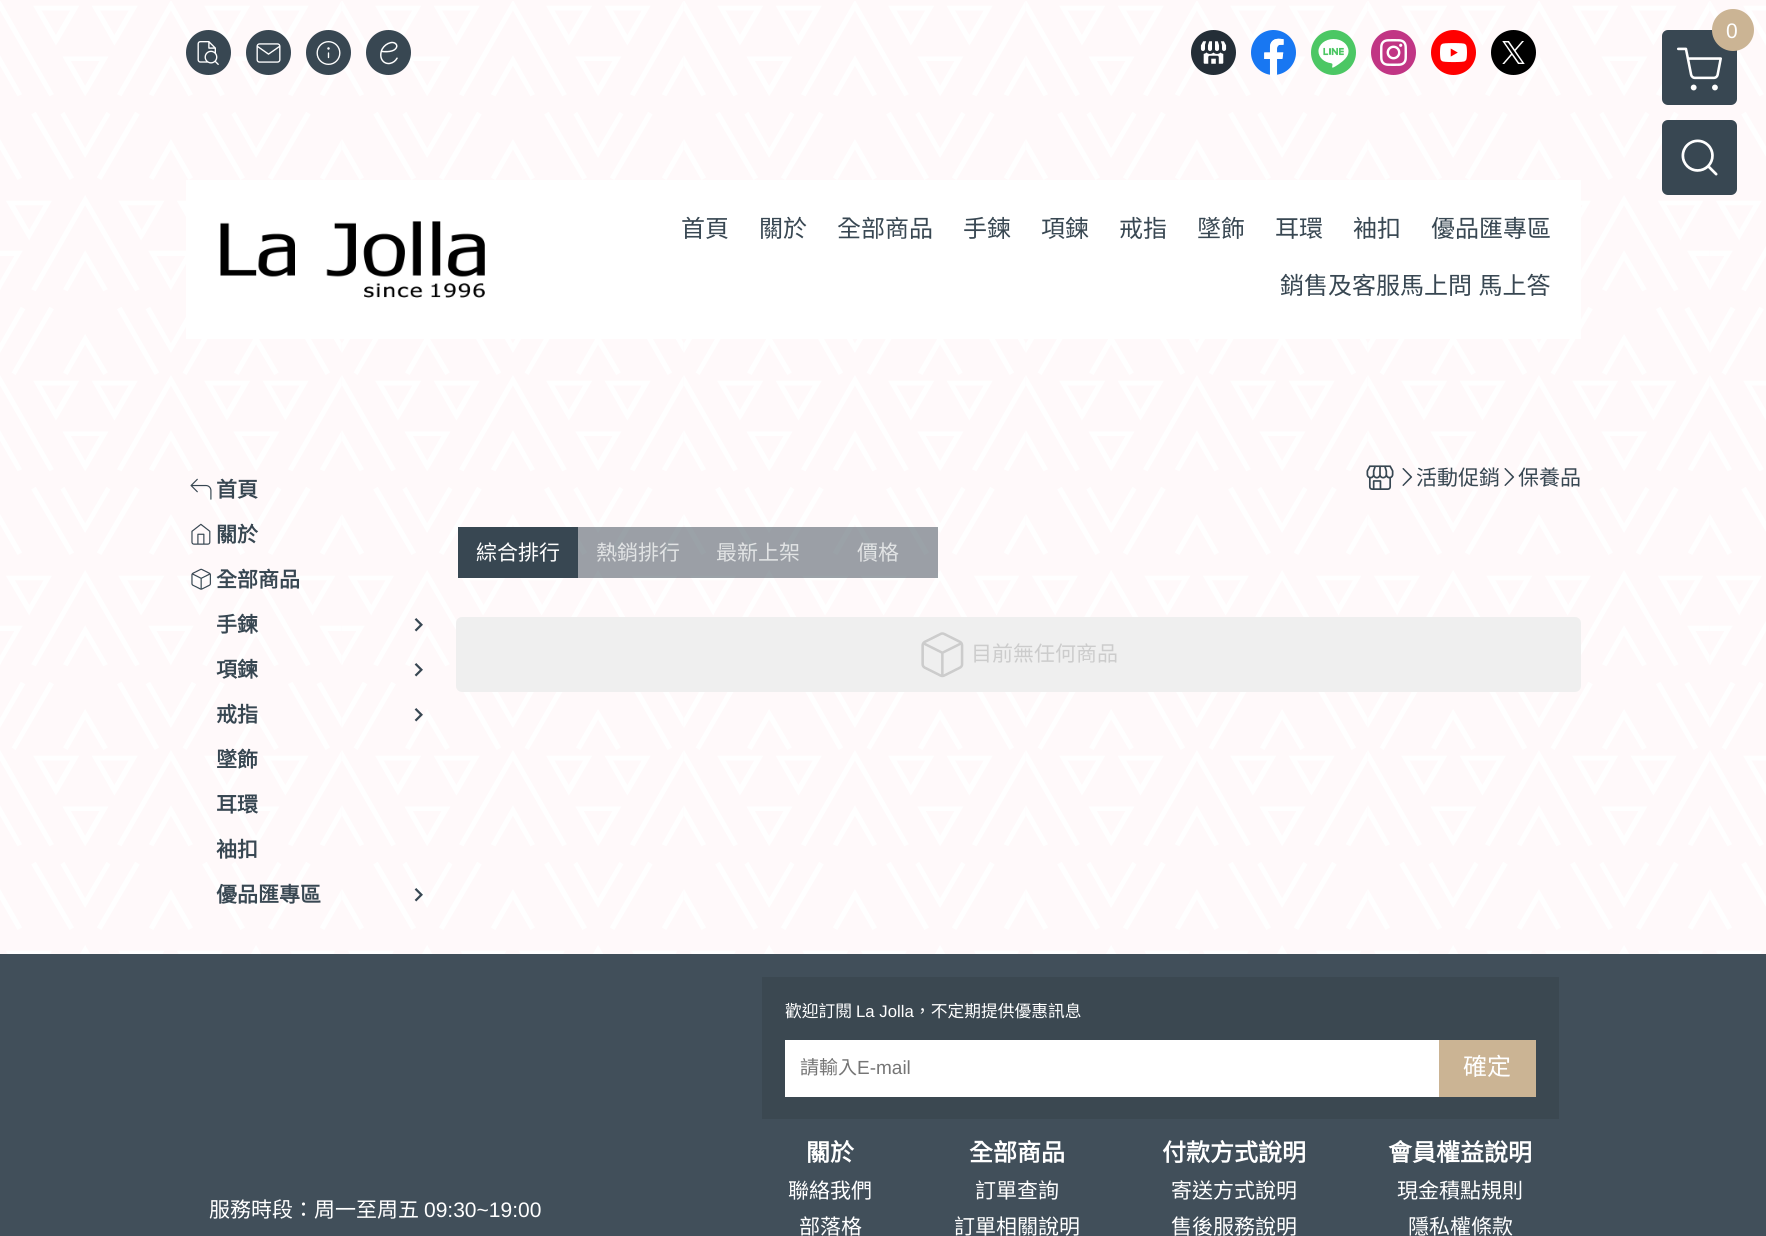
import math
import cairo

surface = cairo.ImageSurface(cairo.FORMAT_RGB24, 1766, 1236)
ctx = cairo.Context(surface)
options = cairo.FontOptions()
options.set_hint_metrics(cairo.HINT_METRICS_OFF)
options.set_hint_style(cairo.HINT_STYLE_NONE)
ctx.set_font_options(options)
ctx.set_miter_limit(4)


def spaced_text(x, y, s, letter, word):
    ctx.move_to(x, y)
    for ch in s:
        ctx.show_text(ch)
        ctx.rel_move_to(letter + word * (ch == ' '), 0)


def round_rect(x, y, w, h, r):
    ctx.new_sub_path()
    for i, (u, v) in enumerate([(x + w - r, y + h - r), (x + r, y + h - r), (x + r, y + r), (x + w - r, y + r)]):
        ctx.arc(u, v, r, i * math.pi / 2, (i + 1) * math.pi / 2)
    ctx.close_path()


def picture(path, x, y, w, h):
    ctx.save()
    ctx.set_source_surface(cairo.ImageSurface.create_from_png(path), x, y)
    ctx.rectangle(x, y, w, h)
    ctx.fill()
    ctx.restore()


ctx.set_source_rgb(1, 0.976, 0.98)
ctx.paint()
picture("img1.png", 0, 1, 1766, 1220)
ctx.set_source_rgb(0.22, 0.278, 0.322)
ctx.arc(208.5, 52.5, 21.5, 0, 2 * math.pi)
ctx.fill_preserve()
ctx.stroke()
picture("img2.png", 197, 41, 22, 24)
ctx.arc(268.5, 52.5, 21.5, 0, 2 * math.pi)
ctx.fill_preserve()
ctx.stroke()
picture("img3.png", 256, 43, 25, 20)
ctx.arc(328.5, 52.5, 21.5, 0, 2 * math.pi)
ctx.fill_preserve()
ctx.stroke()
picture("img4.png", 316, 41, 25, 24)
ctx.arc(388.5, 52.5, 21.5, 0, 2 * math.pi)
ctx.fill_preserve()
ctx.stroke()
picture("img5.png", 380, 41, 18, 24)
picture("img6.png", 1191, 30, 45, 45)
picture("img7.png", 1251, 30, 45, 45)
picture("img8.png", 1311, 30, 45, 45)
picture("img9.png", 1371, 30, 45, 45)
picture("img10.png", 1431, 30, 45, 45)
picture("img11.png", 1491, 30, 45, 45)
round_rect(1663, 31, 73, 73, 5)
ctx.fill_preserve()
ctx.stroke()
picture("img12.png", 1677, 47, 45, 44)
ctx.set_source_rgb(0.796, 0.706, 0.58)
ctx.arc(1733, 30, 21, 0, 2 * math.pi)
ctx.fill()
ctx.select_font_face("Liberation Sans")
ctx.set_font_size(21)
ctx.set_source_rgb(1, 1, 1)
spaced_text(1726, 38, "0", 2, 0)
ctx.set_source_rgb(0.22, 0.278, 0.322)
round_rect(1663, 121, 73, 73, 5)
ctx.fill_preserve()
ctx.stroke()
picture("img13.png", 1681, 139, 37, 37)
ctx.set_source_rgb(1, 1, 1)
ctx.rectangle(186, 180, 1395, 159)
ctx.fill()
picture("img14.png", 220, 221, 265, 77)
ctx.select_font_face("Noto Sans CJK TC")
ctx.set_font_size(24)
ctx.set_source_rgb(0.22, 0.278, 0.322)
ctx.move_to(681, 237)
ctx.show_text("首頁")
ctx.move_to(759, 237)
ctx.show_text("關於")
ctx.move_to(837, 237)
ctx.show_text("全部商品")
ctx.move_to(963, 237)
ctx.show_text("手鍊")
ctx.move_to(1041, 237)
ctx.show_text("項鍊")
ctx.move_to(1119, 237)
ctx.show_text("戒指")
ctx.move_to(1197, 237)
ctx.show_text("墜飾")
ctx.move_to(1275, 237)
ctx.show_text("耳環")
ctx.move_to(1353, 237)
ctx.show_text("袖扣")
ctx.move_to(1431, 237)
ctx.show_text("優品匯專區")
spaced_text(1280, 294, "銷售及客服馬上問 馬上答", 0, 1)
picture("img15.png", 190, 478, 22, 22)
ctx.select_font_face("Noto Sans CJK TC", cairo.FONT_SLANT_NORMAL, cairo.FONT_WEIGHT_BOLD)
ctx.set_font_size(21)
ctx.move_to(216, 497)
ctx.show_text("首頁")
picture("img16.png", 191, 523, 20, 22)
ctx.move_to(216, 542)
ctx.show_text("關於")
picture("img17.png", 191, 568, 20, 22)
ctx.move_to(216, 587)
ctx.show_text("全部商品")
ctx.move_to(216, 632)
ctx.show_text("手鍊")
picture("img18.png", 414, 618, 9, 14)
ctx.move_to(216, 677)
ctx.show_text("項鍊")
picture("img18.png", 414, 663, 9, 14)
ctx.move_to(216, 722)
ctx.show_text("戒指")
picture("img19.png", 414, 708, 9, 14)
ctx.move_to(216, 767)
ctx.show_text("墜飾")
ctx.move_to(216, 812)
ctx.show_text("耳環")
ctx.move_to(216, 857)
ctx.show_text("袖扣")
ctx.move_to(216, 902)
ctx.show_text("優品匯專區")
picture("img20.png", 414, 888, 9, 14)
picture("img21.png", 1366, 465, 28, 25)
picture("img22.png", 1402, 468, 11, 18)
ctx.select_font_face("Noto Sans CJK TC")
ctx.move_to(1416, 485)
ctx.show_text("活動促銷")
picture("img22.png", 1504, 468, 11, 18)
ctx.move_to(1518, 485)
ctx.show_text("保養品")
ctx.rectangle(458, 527, 120, 51)
ctx.fill()
ctx.set_source_rgb(1, 1, 1)
ctx.move_to(476, 560)
ctx.show_text("綜合排行")
ctx.set_source_rgba(0.22, 0.278, 0.322, 0.5)
ctx.rectangle(578, 527, 120, 51)
ctx.fill()
ctx.set_source_rgb(0.882, 0.89, 0.894)
ctx.move_to(596, 560)
ctx.show_text("熱銷排行")
ctx.set_source_rgba(0.22, 0.278, 0.322, 0.5)
ctx.rectangle(698, 527, 120, 51)
ctx.fill()
ctx.set_source_rgb(0.882, 0.89, 0.894)
ctx.move_to(716, 560)
ctx.show_text("最新上架")
ctx.set_source_rgba(0.22, 0.278, 0.322, 0.5)
ctx.rectangle(818, 527, 120, 51)
ctx.fill()
ctx.set_source_rgb(0.882, 0.89, 0.894)
ctx.move_to(857, 560)
ctx.show_text("價格")
ctx.set_source_rgb(0.937, 0.937, 0.937)
round_rect(456, 617, 1125, 75, 6)
ctx.fill()
picture("img23.png", 921, 632, 43, 46)
ctx.set_source_rgb(0.8, 0.8, 0.8)
ctx.move_to(971, 661)
ctx.show_text("目前無任何商品")
ctx.set_source_rgba(0.22, 0.278, 0.322, 0.95)
ctx.rectangle(0, 954, 1766, 282)
ctx.fill()
ctx.set_source_rgb(1, 1, 1)
ctx.move_to(209, 1217)
ctx.show_text("服務時段：周一至周五")
ctx.select_font_face("Liberation Sans")
ctx.move_to(424, 1217)
ctx.show_text("09:30~19:00")
ctx.set_source_rgb(0.231, 0.282, 0.318)
ctx.rectangle(762, 977, 797, 142)
ctx.fill()
ctx.select_font_face("Noto Sans CJK TC")
ctx.set_font_size(16.75)
ctx.set_source_rgb(1, 1, 1)
ctx.move_to(785, 1017)
ctx.show_text("歡迎訂閱")
ctx.select_font_face("Liberation Sans")
ctx.move_to(856, 1017)
ctx.show_text("La Jolla")
ctx.select_font_face("Noto Sans CJK TC")
ctx.move_to(914, 1017)
ctx.show_text("，不定期提供優惠訊息")
ctx.rectangle(785, 1040, 654, 57)
ctx.fill()
ctx.set_font_size(19)
ctx.set_source_rgb(0.459, 0.459, 0.459)
ctx.move_to(800, 1074)
ctx.show_text("請輸入")
ctx.select_font_face("Liberation Sans")
ctx.move_to(857, 1074)
ctx.show_text("E-mail")
ctx.set_source_rgb(0.796, 0.706, 0.58)
ctx.rectangle(1439, 1040, 97, 57)
ctx.fill()
ctx.select_font_face("Noto Sans CJK TC")
ctx.set_font_size(24)
ctx.set_source_rgb(1, 1, 1)
ctx.move_to(1463, 1075)
ctx.show_text("確定")
ctx.select_font_face("Noto Sans CJK TC", cairo.FONT_SLANT_NORMAL, cairo.FONT_WEIGHT_BOLD)
ctx.move_to(806, 1161)
ctx.show_text("關於")
ctx.select_font_face("Noto Sans CJK TC")
ctx.set_font_size(21)
ctx.move_to(788, 1198)
ctx.show_text("聯絡我們")
ctx.move_to(799, 1234)
ctx.show_text("部落格")
ctx.select_font_face("Noto Sans CJK TC", cairo.FONT_SLANT_NORMAL, cairo.FONT_WEIGHT_BOLD)
ctx.set_font_size(24)
ctx.move_to(969, 1161)
ctx.show_text("全部商品")
ctx.select_font_face("Noto Sans CJK TC")
ctx.set_font_size(21)
ctx.move_to(975, 1198)
ctx.show_text("訂單查詢")
ctx.move_to(954, 1234)
ctx.show_text("訂單相關說明")
ctx.select_font_face("Noto Sans CJK TC", cairo.FONT_SLANT_NORMAL, cairo.FONT_WEIGHT_BOLD)
ctx.set_font_size(24)
ctx.move_to(1162, 1161)
ctx.show_text("付款方式說明")
ctx.select_font_face("Noto Sans CJK TC")
ctx.set_font_size(21)
ctx.move_to(1171, 1198)
ctx.show_text("寄送方式說明")
ctx.move_to(1171, 1234)
ctx.show_text("售後服務說明")
ctx.select_font_face("Noto Sans CJK TC", cairo.FONT_SLANT_NORMAL, cairo.FONT_WEIGHT_BOLD)
ctx.set_font_size(24)
ctx.move_to(1388, 1161)
ctx.show_text("會員權益說明")
ctx.select_font_face("Noto Sans CJK TC")
ctx.set_font_size(21)
ctx.move_to(1397, 1198)
ctx.show_text("現金積點規則")
ctx.move_to(1408, 1234)
ctx.show_text("隱私權條款")
surface.write_to_png("page.png")
